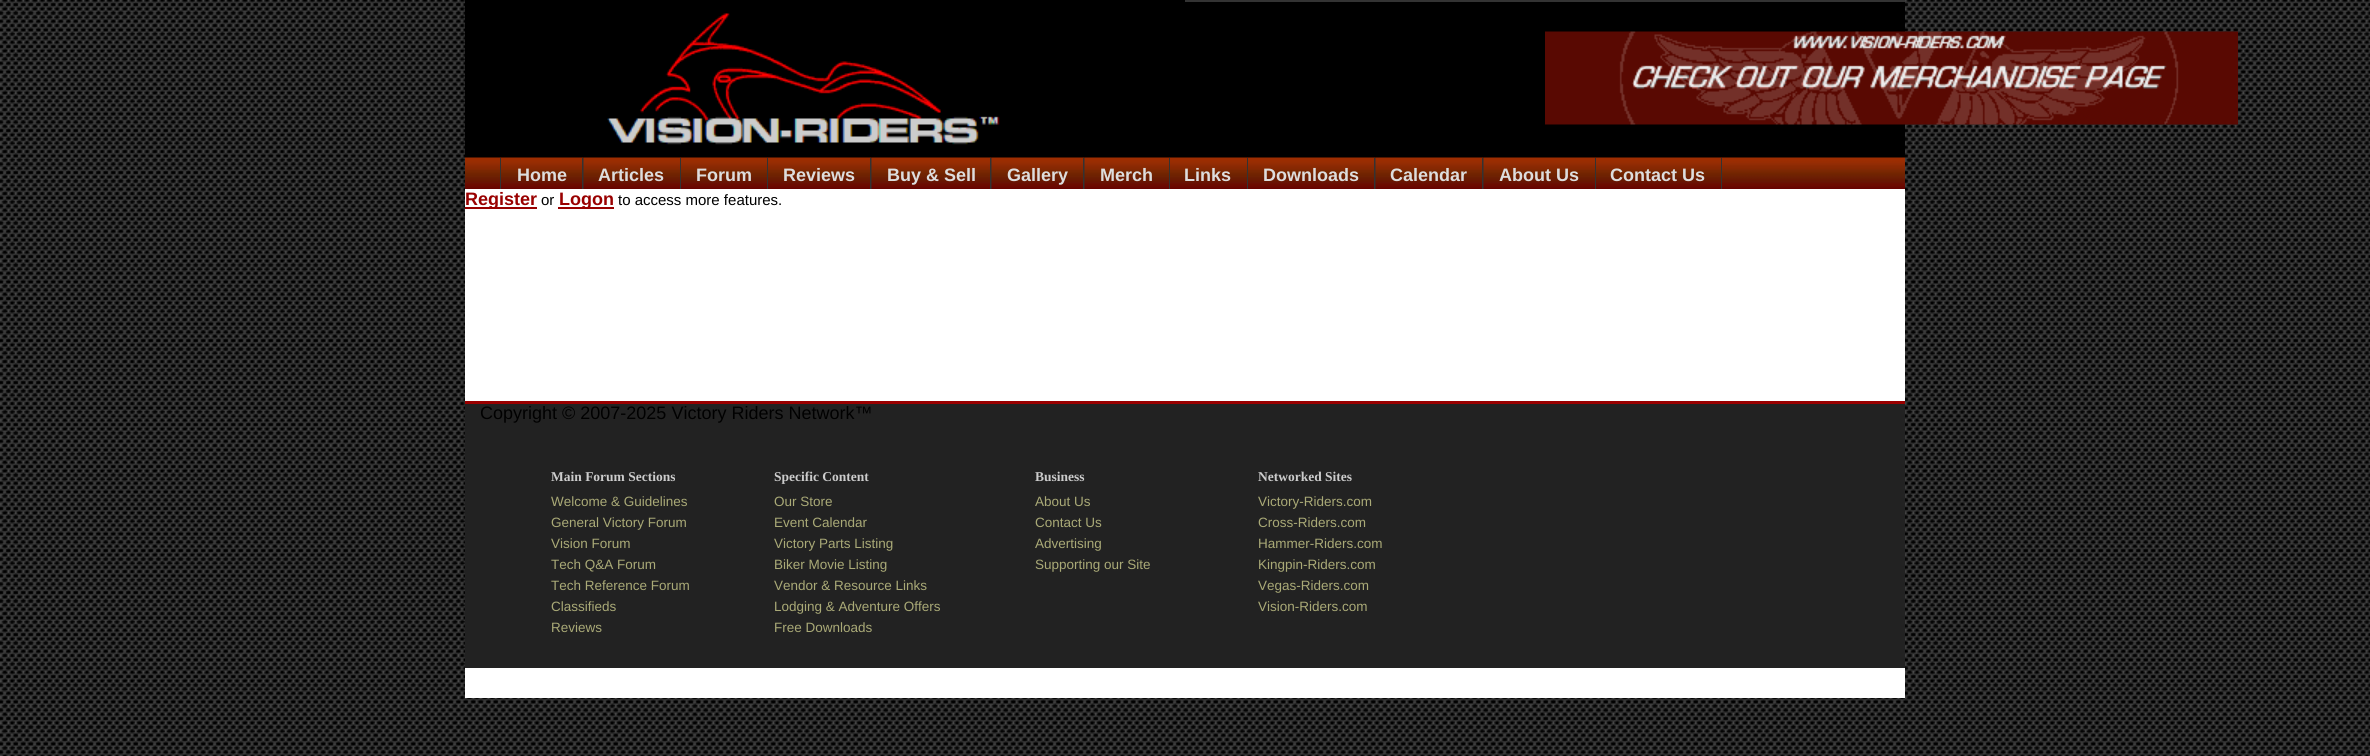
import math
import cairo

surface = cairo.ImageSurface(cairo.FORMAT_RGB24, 2370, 756)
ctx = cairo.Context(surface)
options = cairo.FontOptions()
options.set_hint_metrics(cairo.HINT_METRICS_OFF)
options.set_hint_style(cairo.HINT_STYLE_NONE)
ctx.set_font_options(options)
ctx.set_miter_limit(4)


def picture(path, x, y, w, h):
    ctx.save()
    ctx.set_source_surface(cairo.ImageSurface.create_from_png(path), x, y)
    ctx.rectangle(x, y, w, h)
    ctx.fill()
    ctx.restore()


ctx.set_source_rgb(1, 1, 1)
ctx.paint()
picture("img1.png", 0, 0, 2370, 756)
ctx.set_source_rgb(0, 0, 0)
ctx.rectangle(465, 0, 1440, 158)
ctx.fill()
picture("img2.png", 607, 13, 393, 132)
ctx.set_source_rgb(0.2, 0.2, 0.2)
ctx.rectangle(1185, 0, 720, 2)
ctx.fill()
picture("img3.png", 1545, 31, 693, 94)
picture("img4.png", 465, 157, 36, 32)
ctx.rectangle(500, 158, 1, 31)
ctx.fill()
picture("img5.png", 501, 157, 83, 32)
ctx.rectangle(582, 158, 2, 31)
ctx.fill()
ctx.select_font_face("Liberation Sans", cairo.FONT_SLANT_NORMAL, cairo.FONT_WEIGHT_BOLD)
ctx.set_font_size(18)
ctx.set_source_rgb(0.867, 0.867, 0.867)
ctx.move_to(517, 181)
ctx.show_text("Home")
picture("img6.png", 583, 157, 98, 32)
ctx.set_source_rgb(0.2, 0.2, 0.2)
ctx.rectangle(680, 158, 1, 31)
ctx.fill()
ctx.set_source_rgb(0.867, 0.867, 0.867)
ctx.move_to(598, 181)
ctx.show_text("Articles")
picture("img7.png", 681, 157, 87, 32)
ctx.set_source_rgb(0.2, 0.2, 0.2)
ctx.rectangle(767, 158, 1, 31)
ctx.fill()
ctx.set_source_rgb(0.867, 0.867, 0.867)
ctx.move_to(696, 181)
ctx.show_text("Forum")
picture("img8.png", 768, 157, 104, 32)
ctx.set_source_rgb(0.2, 0.2, 0.2)
ctx.rectangle(870, 158, 2, 31)
ctx.fill()
ctx.set_source_rgb(0.867, 0.867, 0.867)
ctx.move_to(783, 181)
ctx.show_text("Reviews")
picture("img9.png", 871, 157, 121, 32)
ctx.set_source_rgb(0.2, 0.2, 0.2)
ctx.rectangle(990, 158, 2, 31)
ctx.fill()
ctx.set_source_rgb(0.867, 0.867, 0.867)
ctx.move_to(887, 181)
ctx.show_text("Buy & Sell")
picture("img10.png", 991, 157, 94, 32)
ctx.set_source_rgb(0.2, 0.2, 0.2)
ctx.rectangle(1083, 158, 2, 31)
ctx.fill()
ctx.set_source_rgb(0.867, 0.867, 0.867)
ctx.move_to(1007, 181)
ctx.show_text("Gallery")
picture("img11.png", 1084, 157, 86, 32)
ctx.set_source_rgb(0.2, 0.2, 0.2)
ctx.rectangle(1169, 158, 1, 31)
ctx.fill()
ctx.set_source_rgb(0.867, 0.867, 0.867)
ctx.move_to(1100, 181)
ctx.show_text("Merch")
picture("img12.png", 1170, 157, 78, 32)
ctx.set_source_rgb(0.2, 0.2, 0.2)
ctx.rectangle(1247, 158, 1, 31)
ctx.fill()
ctx.set_source_rgb(0.867, 0.867, 0.867)
ctx.move_to(1184, 181)
ctx.show_text("Links")
picture("img13.png", 1248, 157, 128, 32)
ctx.set_source_rgb(0.2, 0.2, 0.2)
ctx.rectangle(1374, 158, 2, 31)
ctx.fill()
ctx.set_source_rgb(0.867, 0.867, 0.867)
ctx.move_to(1263, 181)
ctx.show_text("Downloads")
picture("img14.png", 1375, 157, 109, 32)
ctx.set_source_rgb(0.2, 0.2, 0.2)
ctx.rectangle(1482, 158, 2, 31)
ctx.fill()
ctx.set_source_rgb(0.867, 0.867, 0.867)
ctx.move_to(1390, 181)
ctx.show_text("Calendar")
picture("img15.png", 1483, 157, 113, 32)
ctx.set_source_rgb(0.2, 0.2, 0.2)
ctx.rectangle(1595, 158, 1, 31)
ctx.fill()
ctx.set_source_rgb(0.867, 0.867, 0.867)
ctx.move_to(1499, 181)
ctx.show_text("About Us")
picture("img16.png", 1596, 157, 126, 32)
ctx.set_source_rgb(0.2, 0.2, 0.2)
ctx.rectangle(1721, 158, 1, 31)
ctx.fill()
ctx.set_source_rgb(0.867, 0.867, 0.867)
ctx.move_to(1610, 181)
ctx.show_text("Contact Us")
picture("img17.png", 1722, 157, 183, 32)
ctx.set_source_rgb(1, 1, 1)
ctx.rectangle(465, 189, 1440, 509)
ctx.fill()
ctx.set_source_rgb(0.6, 0, 0)
ctx.rectangle(465, 207, 72, 2)
ctx.fill()
ctx.move_to(465, 205)
ctx.show_text("Register")
ctx.select_font_face("Liberation Sans")
ctx.set_font_size(15)
ctx.set_source_rgb(0, 0, 0)
ctx.move_to(541, 205)
ctx.show_text("or")
ctx.set_source_rgb(0.6, 0, 0)
ctx.rectangle(558, 207, 56, 2)
ctx.fill()
ctx.select_font_face("Liberation Sans", cairo.FONT_SLANT_NORMAL, cairo.FONT_WEIGHT_BOLD)
ctx.set_font_size(18)
ctx.move_to(559, 205)
ctx.show_text("Logon")
ctx.select_font_face("Liberation Sans")
ctx.set_font_size(15)
ctx.set_source_rgb(0, 0, 0)
ctx.move_to(618, 205)
ctx.show_text("to access more features.")
ctx.set_source_rgb(0.133, 0.133, 0.133)
ctx.rectangle(465, 404, 1440, 264)
ctx.fill()
ctx.set_source_rgb(0.6, 0, 0)
ctx.rectangle(465, 401, 1440, 3)
ctx.fill()
ctx.set_font_size(18)
ctx.set_source_rgb(0, 0, 0)
ctx.move_to(480, 419)
ctx.show_text("Copyright © 2007-2025 Victory Riders Network™")
ctx.select_font_face("Liberation Serif", cairo.FONT_SLANT_NORMAL, cairo.FONT_WEIGHT_BOLD)
ctx.set_font_size(13.5)
ctx.set_source_rgb(0.8, 0.8, 0.8)
ctx.move_to(551, 481)
ctx.show_text("Main Forum Sections")
ctx.select_font_face("Liberation Sans")
ctx.set_source_rgb(0.667, 0.667, 0.467)
ctx.move_to(551, 506)
ctx.show_text("Welcome & Guidelines")
ctx.move_to(551, 527)
ctx.show_text("General Victory Forum")
ctx.move_to(551, 548)
ctx.show_text("Vision Forum")
ctx.move_to(551, 569)
ctx.show_text("Tech Q&A Forum")
ctx.move_to(551, 590)
ctx.show_text("Tech Reference Forum")
ctx.move_to(551, 611)
ctx.show_text("Classifieds")
ctx.move_to(551, 632)
ctx.show_text("Reviews")
ctx.select_font_face("Liberation Serif", cairo.FONT_SLANT_NORMAL, cairo.FONT_WEIGHT_BOLD)
ctx.set_source_rgb(0.8, 0.8, 0.8)
ctx.move_to(774, 481)
ctx.show_text("Specific Content")
ctx.select_font_face("Liberation Sans")
ctx.set_source_rgb(0.667, 0.667, 0.467)
ctx.move_to(774, 506)
ctx.show_text("Our Store")
ctx.move_to(774, 527)
ctx.show_text("Event Calendar")
ctx.move_to(774, 548)
ctx.show_text("Victory Parts Listing")
ctx.move_to(774, 569)
ctx.show_text("Biker Movie Listing")
ctx.move_to(774, 590)
ctx.show_text("Vendor & Resource Links")
ctx.move_to(774, 611)
ctx.show_text("Lodging & Adventure Offers")
ctx.move_to(774, 632)
ctx.show_text("Free Downloads")
ctx.select_font_face("Liberation Serif", cairo.FONT_SLANT_NORMAL, cairo.FONT_WEIGHT_BOLD)
ctx.set_source_rgb(0.8, 0.8, 0.8)
ctx.move_to(1035, 481)
ctx.show_text("Business")
ctx.select_font_face("Liberation Sans")
ctx.set_source_rgb(0.667, 0.667, 0.467)
ctx.move_to(1035, 506)
ctx.show_text("About Us")
ctx.move_to(1035, 527)
ctx.show_text("Contact Us")
ctx.move_to(1035, 548)
ctx.show_text("Advertising")
ctx.move_to(1035, 569)
ctx.show_text("Supporting our Site")
ctx.select_font_face("Liberation Serif", cairo.FONT_SLANT_NORMAL, cairo.FONT_WEIGHT_BOLD)
ctx.set_source_rgb(0.8, 0.8, 0.8)
ctx.move_to(1258, 481)
ctx.show_text("Networked Sites")
ctx.select_font_face("Liberation Sans")
ctx.set_source_rgb(0.667, 0.667, 0.467)
ctx.move_to(1258, 506)
ctx.show_text("Victory-Riders.com")
ctx.move_to(1258, 527)
ctx.show_text("Cross-Riders.com")
ctx.move_to(1258, 548)
ctx.show_text("Hammer-Riders.com")
ctx.move_to(1258, 569)
ctx.show_text("Kingpin-Riders.com")
ctx.move_to(1258, 590)
ctx.show_text("Vegas-Riders.com")
ctx.move_to(1258, 611)
ctx.show_text("Vision-Riders.com")
surface.write_to_png("page.png")
